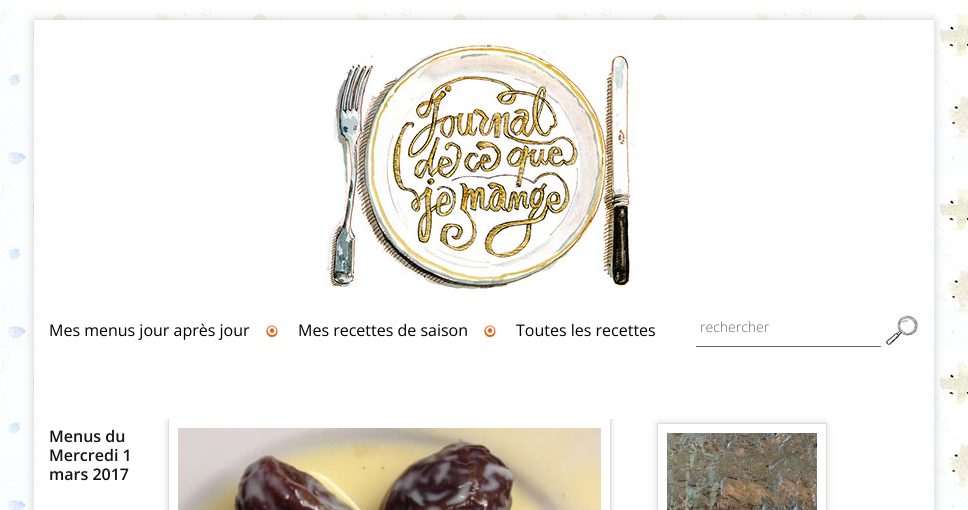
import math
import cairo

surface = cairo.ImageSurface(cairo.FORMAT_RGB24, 968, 510)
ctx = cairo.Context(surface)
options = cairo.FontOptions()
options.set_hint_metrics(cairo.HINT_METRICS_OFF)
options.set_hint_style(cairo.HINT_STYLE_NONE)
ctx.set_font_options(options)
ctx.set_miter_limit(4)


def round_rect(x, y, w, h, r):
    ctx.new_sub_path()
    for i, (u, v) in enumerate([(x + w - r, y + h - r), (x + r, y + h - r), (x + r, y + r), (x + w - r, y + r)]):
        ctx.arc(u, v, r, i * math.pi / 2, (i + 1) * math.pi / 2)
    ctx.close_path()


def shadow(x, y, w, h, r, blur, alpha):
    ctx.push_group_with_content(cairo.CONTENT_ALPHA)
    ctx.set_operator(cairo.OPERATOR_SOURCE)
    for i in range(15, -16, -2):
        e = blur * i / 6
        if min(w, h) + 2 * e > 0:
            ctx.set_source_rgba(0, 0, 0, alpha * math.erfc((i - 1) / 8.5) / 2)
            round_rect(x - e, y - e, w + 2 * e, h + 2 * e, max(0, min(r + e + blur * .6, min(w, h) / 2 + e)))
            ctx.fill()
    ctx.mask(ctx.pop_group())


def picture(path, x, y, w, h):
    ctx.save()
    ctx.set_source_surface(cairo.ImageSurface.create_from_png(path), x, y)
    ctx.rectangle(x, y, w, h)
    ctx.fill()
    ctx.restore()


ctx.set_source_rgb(1, 1, 1)
ctx.paint()
picture("img1.png", 0, 8, 968, 502)
ctx.set_source_rgb(0, 0, 0)
shadow(34, 20, 900, 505, 0, 5, 0.2)
ctx.set_source_rgb(1, 1, 1)
ctx.rectangle(34, 20, 900, 490)
ctx.fill()
picture("img2.png", 325, 41, 318, 248)
ctx.select_font_face("Open Sans")
ctx.set_font_size(16)
ctx.set_source_rgb(0, 0, 0)
ctx.move_to(49, 336)
ctx.show_text("Mes menus jour après jour")
picture("img3.png", 266, 323, 12, 15)
ctx.move_to(298, 336)
ctx.show_text("Mes recettes de saison")
picture("img3.png", 484, 323, 12, 15)
ctx.move_to(516, 336)
ctx.show_text("Toutes les recettes")
ctx.set_source_rgb(0.4, 0.4, 0.4)
ctx.rectangle(696, 346, 185, 1)
ctx.fill()
ctx.select_font_face("Open Sans Light")
ctx.set_font_size(14)
ctx.move_to(700, 332)
ctx.show_text("rechercher")
picture("img4.png", 885, 313, 34, 32)
ctx.select_font_face("Open Sans SemiBold")
ctx.set_font_size(16)
ctx.set_source_rgb(0.082, 0.082, 0.082)
ctx.move_to(49, 442)
ctx.show_text("Menus du")
ctx.move_to(49, 461)
ctx.show_text("Mercredi 1")
ctx.move_to(49, 480)
ctx.show_text("mars 2017")
ctx.save()
ctx.rectangle(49, 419, 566, 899)
ctx.clip()
ctx.set_fill_rule(cairo.FILL_RULE_EVEN_ODD)
ctx.new_path()
ctx.move_to(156, 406)
ctx.line_to(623, 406)
ctx.line_to(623, 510)
ctx.line_to(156, 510)
ctx.close_path()
ctx.move_to(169, 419)
ctx.line_to(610, 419)
ctx.line_to(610, 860)
ctx.line_to(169, 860)
ctx.close_path()
ctx.clip()
ctx.set_source_rgb(0, 0, 0)
shadow(169, 419, 441, 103, 0, 4, 0.2)
ctx.restore()
picture("img5.png", 178, 428, 423, 82)
ctx.save()
ctx.rectangle(49, 419, 566, 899)
ctx.clip()
ctx.rectangle(168.5, 418.5, 442, 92)
ctx.set_source_rgb(0.871, 0.871, 0.871)
ctx.set_line_width(1)
ctx.stroke()
ctx.restore()
ctx.save()
ctx.set_fill_rule(cairo.FILL_RULE_EVEN_ODD)
ctx.new_path()
ctx.move_to(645, 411)
ctx.line_to(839, 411)
ctx.line_to(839, 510)
ctx.line_to(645, 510)
ctx.close_path()
ctx.move_to(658, 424)
ctx.line_to(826, 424)
ctx.line_to(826, 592)
ctx.line_to(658, 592)
ctx.close_path()
ctx.clip()
ctx.set_source_rgb(0, 0, 0)
shadow(658, 424, 168, 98, 0, 4, 0.2)
ctx.restore()
picture("img6.png", 667, 433, 150, 77)
ctx.rectangle(657.5, 423.5, 169, 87)
ctx.set_source_rgb(0.871, 0.871, 0.871)
ctx.set_line_width(1)
ctx.stroke()
surface.write_to_png("page.png")
